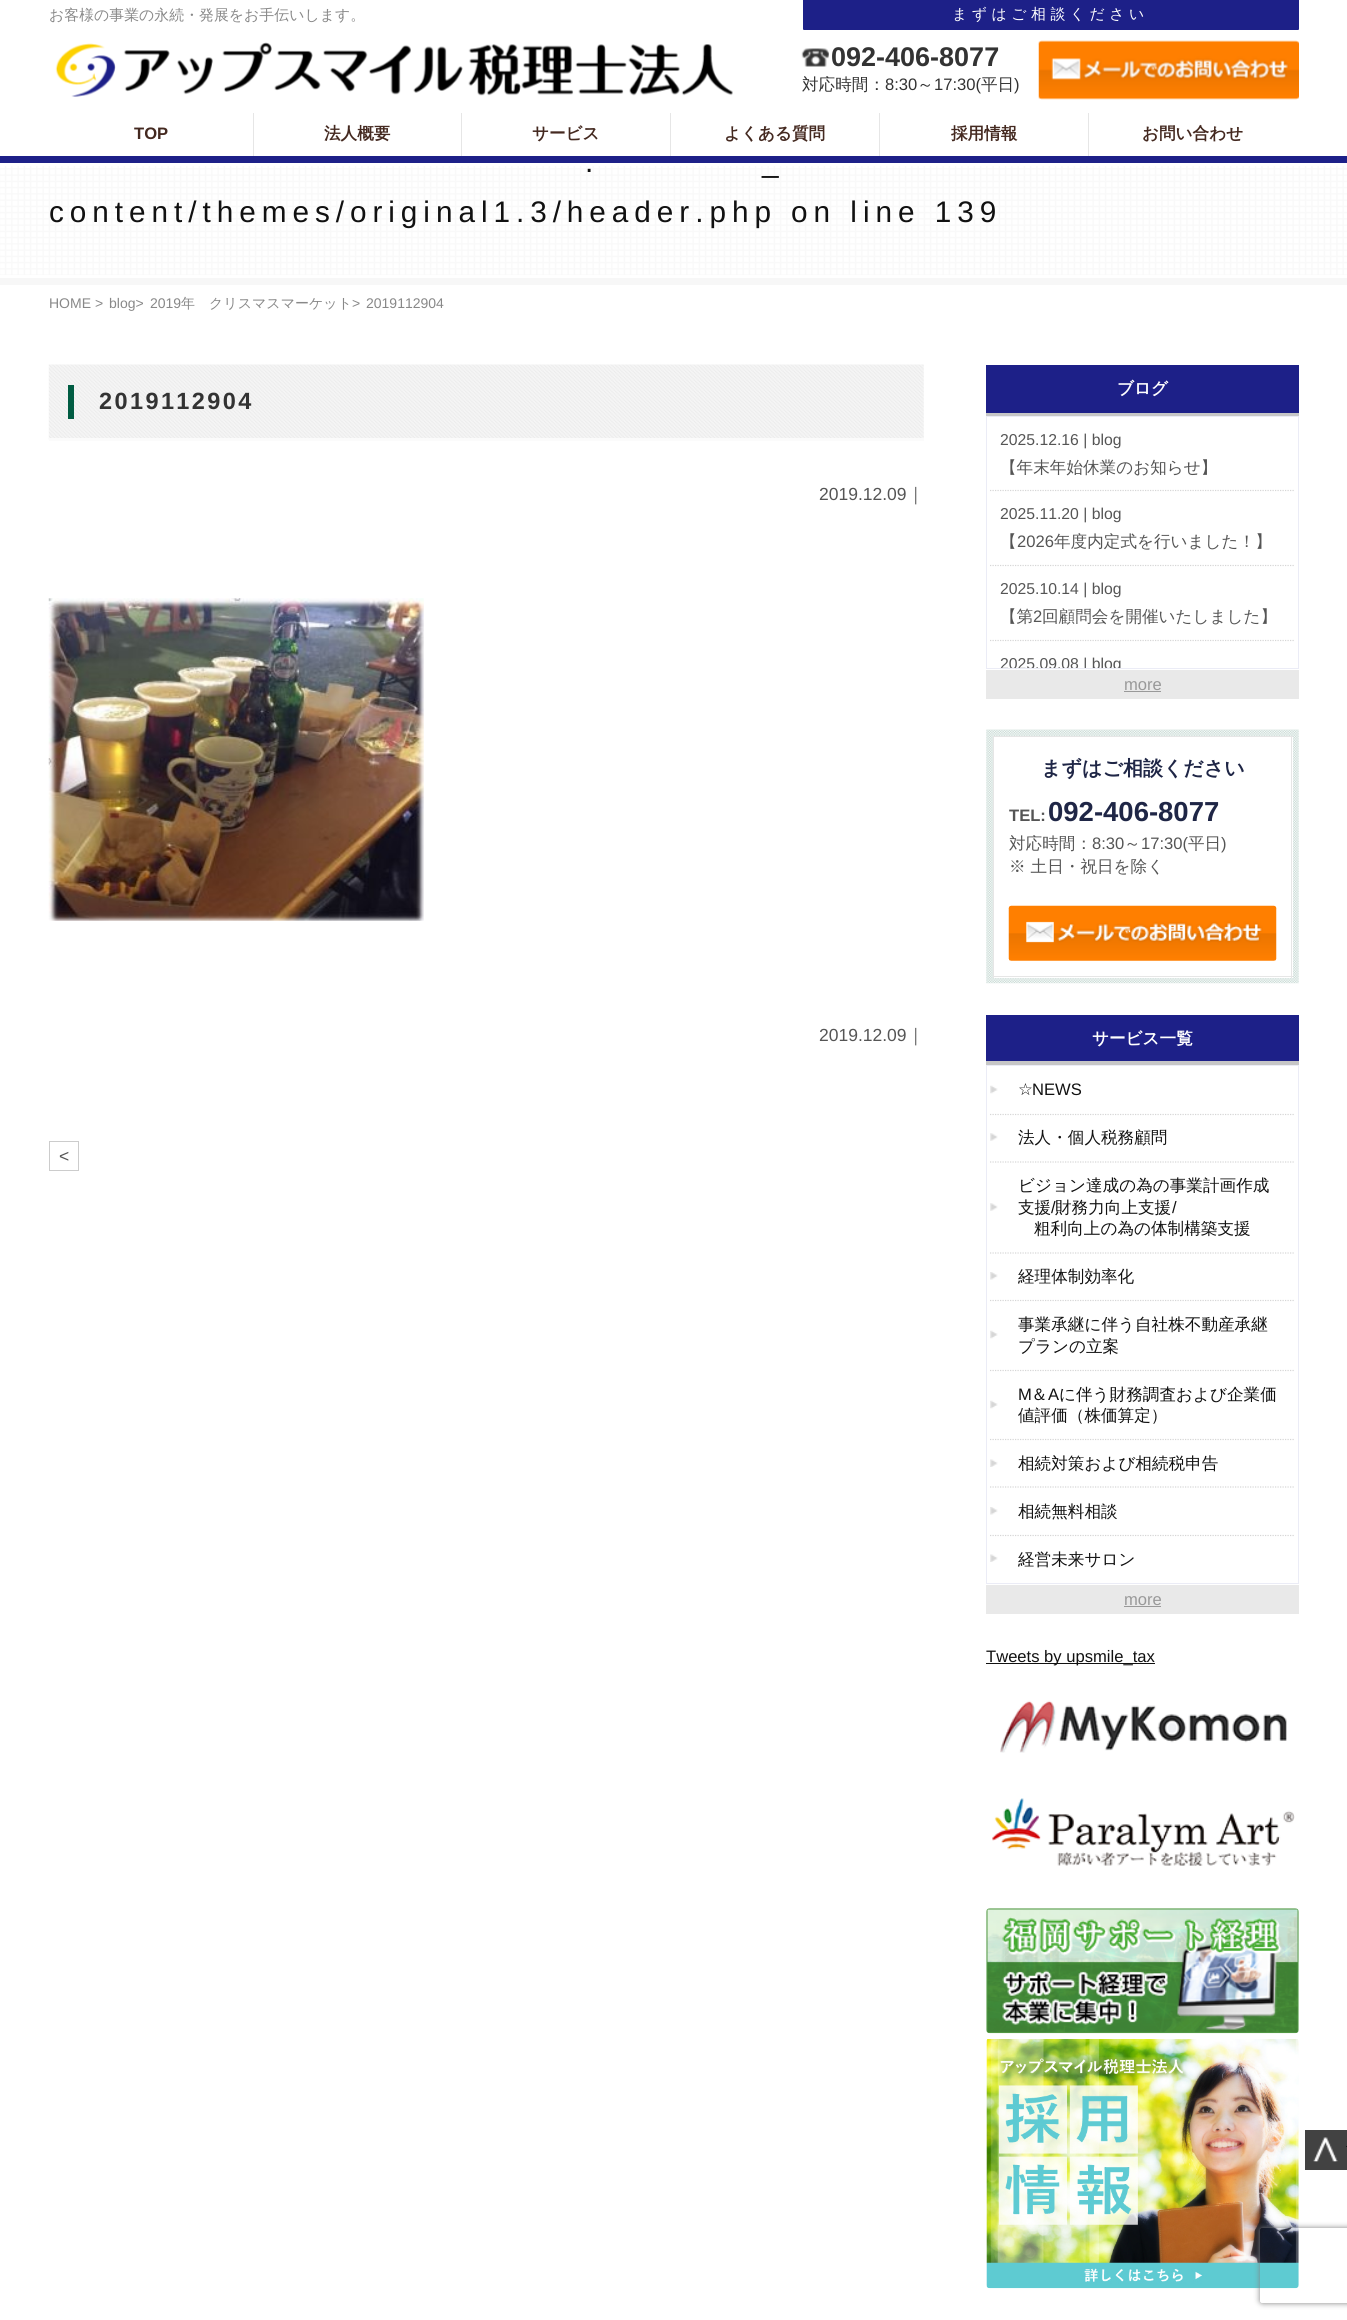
import math
import cairo

surface = cairo.ImageSurface(cairo.FORMAT_RGB24, 1347, 2320)
ctx = cairo.Context(surface)
options = cairo.FontOptions()
options.set_hint_metrics(cairo.HINT_METRICS_OFF)
options.set_hint_style(cairo.HINT_STYLE_NONE)
ctx.set_font_options(options)
ctx.set_miter_limit(4)


def spaced_text(x, y, s, letter, word):
    ctx.move_to(x, y)
    for ch in s:
        ctx.show_text(ch)
        ctx.rel_move_to(letter + word * (ch == ' '), 0)


def round_rect(x, y, w, h, r):
    ctx.new_sub_path()
    for i, (u, v) in enumerate([(x + w - r, y + h - r), (x + r, y + h - r), (x + r, y + r), (x + w - r, y + r)]):
        ctx.arc(u, v, r, i * math.pi / 2, (i + 1) * math.pi / 2)
    ctx.close_path()


def shadow(x, y, w, h, r, blur, alpha):
    ctx.push_group_with_content(cairo.CONTENT_ALPHA)
    ctx.set_operator(cairo.OPERATOR_SOURCE)
    for i in range(15, -16, -2):
        e = blur * i / 6
        if min(w, h) + 2 * e > 0:
            ctx.set_source_rgba(0, 0, 0, alpha * math.erfc((i - 1) / 8.5) / 2)
            round_rect(x - e, y - e, w + 2 * e, h + 2 * e, max(0, min(r + e + blur * .6, min(w, h) / 2 + e)))
            ctx.fill()
    ctx.mask(ctx.pop_group())


def picture(path, x, y, w, h):
    ctx.save()
    ctx.set_source_surface(cairo.ImageSurface.create_from_png(path), x, y)
    ctx.rectangle(x, y, w, h)
    ctx.fill()
    ctx.restore()


ctx.set_source_rgb(1, 1, 1)
ctx.paint()
ctx.select_font_face("WenQuanYi Zen Hei Medium")
ctx.set_font_size(14.9)
ctx.set_source_rgb(0.533, 0.533, 0.533)
ctx.move_to(49, 20)
ctx.show_text("お客様の事業の永続・発展をお手伝いします。")
ctx.set_source_rgb(0.114, 0.125, 0.533)
ctx.new_path()
ctx.move_to(803, 0)
ctx.line_to(1299, 0)
ctx.line_to(1299, 29)
ctx.curve_to(1299, 29.5, 1298.5, 30, 1298, 30)
ctx.line_to(804, 30)
ctx.curve_to(803.5, 30, 803, 29.5, 803, 29)
ctx.close_path()
ctx.fill()
ctx.set_source_rgb(1, 1, 1)
spaced_text(952, 19, "まずはご相談ください", 4.5, 0)
picture("img1.png", 801, 48, 28, 19)
ctx.select_font_face("Liberation Sans", cairo.FONT_SLANT_NORMAL, cairo.FONT_WEIGHT_BOLD)
ctx.set_font_size(27)
ctx.set_source_rgb(0.2, 0.2, 0.2)
ctx.move_to(831, 66)
ctx.show_text("092-406-8077")
ctx.select_font_face("WenQuanYi Zen Hei Medium")
ctx.set_font_size(16.6)
ctx.move_to(802, 90)
ctx.show_text("対応時間：")
ctx.select_font_face("Liberation Sans")
ctx.move_to(885, 90)
ctx.show_text("8:30")
ctx.select_font_face("WenQuanYi Zen Hei Medium")
ctx.move_to(917, 90)
ctx.show_text("～")
ctx.select_font_face("Liberation Sans")
ctx.move_to(934, 90)
ctx.show_text("17:30(")
ctx.select_font_face("WenQuanYi Zen Hei Medium")
ctx.move_to(981, 90)
ctx.show_text("平日")
ctx.select_font_face("Liberation Sans")
ctx.move_to(1014, 90)
ctx.show_text(")")
picture("img2.png", 1038, 40, 261, 60)
picture("img3.png", 55, 42, 678, 55)
ctx.set_source_rgb(0.114, 0.125, 0.533)
ctx.rectangle(0, 156, 1347, 7)
ctx.fill()
ctx.set_source_rgb(0.902, 0.902, 0.902)
ctx.rectangle(253, 113, 1, 43)
ctx.fill()
ctx.select_font_face("Liberation Sans", cairo.FONT_SLANT_NORMAL, cairo.FONT_WEIGHT_BOLD)
ctx.set_source_rgb(0.267, 0.161, 0.125)
ctx.move_to(134, 139)
ctx.show_text("TOP")
ctx.set_source_rgb(0.902, 0.902, 0.902)
ctx.rectangle(461, 113, 1, 43)
ctx.fill()
ctx.select_font_face("WenQuanYi Zen Hei", cairo.FONT_SLANT_NORMAL, cairo.FONT_WEIGHT_BOLD)
ctx.set_source_rgb(0.267, 0.161, 0.125)
ctx.move_to(324, 139)
ctx.show_text("法人概要")
ctx.set_source_rgb(0.902, 0.902, 0.902)
ctx.rectangle(670, 113, 1, 43)
ctx.fill()
ctx.set_source_rgb(0.267, 0.161, 0.125)
ctx.move_to(532, 139)
ctx.show_text("サービス")
ctx.set_source_rgb(0.902, 0.902, 0.902)
ctx.rectangle(879, 113, 1, 43)
ctx.fill()
ctx.set_source_rgb(0.267, 0.161, 0.125)
ctx.move_to(724, 139)
ctx.show_text("よくある質問")
ctx.set_source_rgb(0.902, 0.902, 0.902)
ctx.rectangle(1088, 113, 1, 43)
ctx.fill()
ctx.set_source_rgb(0.267, 0.161, 0.125)
ctx.move_to(951, 139)
ctx.show_text("採用情報")
ctx.move_to(1142, 139)
ctx.show_text("お問い合わせ")
picture("img4.png", 0, 166, 1347, 109)
ctx.set_source_rgb(0.965, 0.965, 0.965)
ctx.rectangle(0, 278, 1347, 7)
ctx.fill()
ctx.select_font_face("Liberation Sans")
ctx.set_font_size(29.75)
ctx.set_source_rgb(0.067, 0.067, 0.067)
spaced_text(585, 172, ".", 5.95, 0)
spaced_text(762, 172, "_", 5.95, 0)
spaced_text(49, 222, "content/themes/original1.3/header.php on line 139", 5.95, 0)
ctx.set_font_size(14)
ctx.set_source_rgb(0.533, 0.533, 0.533)
ctx.move_to(49, 308)
ctx.show_text("HOME >")
ctx.move_to(109, 308)
ctx.show_text("blog>")
ctx.move_to(150, 308)
ctx.show_text("2019")
ctx.select_font_face("WenQuanYi Zen Hei Medium")
ctx.move_to(181, 308)
ctx.show_text("年　クリスマスマーケット")
ctx.select_font_face("Liberation Sans")
ctx.move_to(352, 308)
ctx.show_text(">")
ctx.move_to(366, 308)
ctx.show_text("2019112904")
picture("img5.png", 48, 364, 876, 76)
ctx.set_source_rgb(0.984, 0.984, 0.984)
ctx.rectangle(49, 438, 875, 3)
ctx.fill()
ctx.set_source_rgb(0, 0.361, 0.259)
ctx.rectangle(68, 385, 6, 34)
ctx.fill()
ctx.select_font_face("Liberation Sans", cairo.FONT_SLANT_NORMAL, cairo.FONT_WEIGHT_BOLD)
ctx.set_font_size(23.5)
ctx.set_source_rgb(0.2, 0.2, 0.2)
spaced_text(99, 409, "2019112904", 2.4, 0)
ctx.select_font_face("Liberation Sans")
ctx.set_font_size(17.5)
ctx.set_source_rgb(0.333, 0.333, 0.333)
ctx.move_to(819, 500)
ctx.show_text("2019.12.09")
ctx.select_font_face("WenQuanYi Zen Hei Medium")
ctx.move_to(907, 500)
ctx.show_text("｜")
picture("img6.png", 48, 598, 376, 323)
ctx.select_font_face("Liberation Sans")
ctx.move_to(819, 1041)
ctx.show_text("2019.12.09")
ctx.select_font_face("WenQuanYi Zen Hei Medium")
ctx.move_to(907, 1041)
ctx.show_text("｜")
ctx.rectangle(49.5, 1141.5, 29, 29)
ctx.set_source_rgb(0.8, 0.8, 0.8)
ctx.set_line_width(1)
ctx.stroke()
ctx.select_font_face("Liberation Sans")
ctx.set_source_rgb(0.333, 0.333, 0.333)
ctx.move_to(59, 1162)
ctx.show_text("<")
ctx.set_source_rgb(0.114, 0.125, 0.533)
ctx.rectangle(986, 365, 313, 48)
ctx.fill()
ctx.set_source_rgb(0.776, 0.776, 0.776)
ctx.rectangle(986, 413, 313, 3)
ctx.fill()
ctx.select_font_face("WenQuanYi Zen Hei", cairo.FONT_SLANT_NORMAL, cairo.FONT_WEIGHT_BOLD)
ctx.set_font_size(16.6)
ctx.set_source_rgb(1, 1, 1)
ctx.move_to(1117, 394)
ctx.show_text("ブログ")
ctx.rectangle(986.5, 416.5, 312, 252)
ctx.set_source_rgb(0.918, 0.922, 0.961)
ctx.stroke()
ctx.new_path()
ctx.move_to(990, 490.5)
ctx.line_to(1295, 490.5)
ctx.set_source_rgb(0.839, 0.839, 0.839)
ctx.set_line_width(1.2)
ctx.set_dash([1.25, 1.25])
ctx.stroke()
ctx.select_font_face("Liberation Sans")
ctx.set_font_size(15.75)
ctx.set_source_rgb(0.333, 0.333, 0.333)
ctx.move_to(1000, 445)
ctx.show_text("2025.12.16 | blog")
ctx.select_font_face("WenQuanYi Zen Hei Medium")
ctx.set_font_size(16.6)
ctx.move_to(1000, 473)
ctx.show_text("【年末年始休業のお知らせ】")
ctx.new_path()
ctx.move_to(990, 565.5)
ctx.line_to(1295, 565.5)
ctx.set_source_rgb(0.839, 0.839, 0.839)
ctx.stroke()
ctx.select_font_face("Liberation Sans")
ctx.set_font_size(15.75)
ctx.set_source_rgb(0.333, 0.333, 0.333)
ctx.move_to(1000, 519)
ctx.show_text("2025.11.20 | blog")
ctx.select_font_face("WenQuanYi Zen Hei Medium")
ctx.set_font_size(16.6)
ctx.move_to(1000, 547)
ctx.show_text("【")
ctx.select_font_face("Liberation Sans")
ctx.move_to(1017, 547)
ctx.show_text("2026")
ctx.select_font_face("WenQuanYi Zen Hei Medium")
ctx.move_to(1054, 547)
ctx.show_text("年度内定式を行いました！】")
ctx.new_path()
ctx.move_to(990, 640.5)
ctx.line_to(1295, 640.5)
ctx.set_source_rgb(0.839, 0.839, 0.839)
ctx.stroke()
ctx.select_font_face("Liberation Sans")
ctx.set_font_size(15.75)
ctx.set_source_rgb(0.333, 0.333, 0.333)
ctx.move_to(1000, 594)
ctx.show_text("2025.10.14 | blog")
ctx.select_font_face("WenQuanYi Zen Hei Medium")
ctx.set_font_size(16.6)
ctx.move_to(1000, 622)
ctx.show_text("【第")
ctx.select_font_face("Liberation Sans")
ctx.move_to(1033, 622)
ctx.show_text("2")
ctx.select_font_face("WenQuanYi Zen Hei Medium")
ctx.move_to(1042, 622)
ctx.show_text("回顧問会を開催いたしました】")
ctx.save()
ctx.rectangle(988, 418, 310, 250)
ctx.clip()
ctx.select_font_face("Liberation Sans")
ctx.set_font_size(15.75)
ctx.move_to(1000, 669)
ctx.show_text("2025.09.08 | blog")
ctx.restore()
ctx.set_source_rgb(0.914, 0.914, 0.914)
ctx.rectangle(986, 670, 313, 29)
ctx.fill()
ctx.select_font_face("Liberation Sans")
ctx.set_source_rgb(0.6, 0.6, 0.6)
ctx.move_to(1124, 690)
ctx.show_text("more")
ctx.rectangle(1124, 691, 37, 1)
ctx.fill()
picture("img7.png", 986, 729, 313, 255)
ctx.set_source_rgb(1, 1, 1)
ctx.rectangle(994, 737, 299, 241)
ctx.fill()
ctx.set_source_rgb(0.902, 0.902, 0.902)
ctx.rectangle(993, 736, 300, 1)
ctx.fill()
ctx.rectangle(1291, 736, 1, 242)
ctx.fill()
ctx.rectangle(993, 736, 1, 155)
ctx.fill()
ctx.select_font_face("WenQuanYi Zen Hei", cairo.FONT_SLANT_NORMAL, cairo.FONT_WEIGHT_BOLD)
ctx.set_font_size(20)
ctx.set_source_rgb(0.122, 0.149, 0.275)
ctx.move_to(1041, 775)
ctx.show_text("まずはご相談ください")
ctx.select_font_face("Liberation Sans", cairo.FONT_SLANT_NORMAL, cairo.FONT_WEIGHT_BOLD)
ctx.set_font_size(16.6)
ctx.set_source_rgb(0.333, 0.333, 0.333)
ctx.move_to(1009, 821)
ctx.show_text("TEL:")
ctx.set_font_size(27.5)
ctx.set_source_rgb(0.122, 0.149, 0.275)
ctx.move_to(1048, 821)
ctx.show_text("092-406-8077")
ctx.select_font_face("WenQuanYi Zen Hei Medium")
ctx.set_font_size(16.6)
ctx.set_source_rgb(0.333, 0.333, 0.333)
ctx.move_to(1009, 849)
ctx.show_text("対応時間：")
ctx.select_font_face("Liberation Sans")
ctx.move_to(1092, 849)
ctx.show_text("8:30")
ctx.select_font_face("WenQuanYi Zen Hei Medium")
ctx.move_to(1124, 849)
ctx.show_text("～")
ctx.select_font_face("Liberation Sans")
ctx.move_to(1141, 849)
ctx.show_text("17:30(")
ctx.select_font_face("WenQuanYi Zen Hei Medium")
ctx.move_to(1188, 849)
ctx.show_text("平日")
ctx.select_font_face("Liberation Sans")
ctx.move_to(1221, 849)
ctx.show_text(")")
ctx.select_font_face("WenQuanYi Zen Hei Medium")
ctx.move_to(1009, 872)
ctx.show_text("※ 土日・祝日を除く")
ctx.set_source_rgb(0.902, 0.902, 0.902)
ctx.rectangle(993, 976, 300, 1)
ctx.fill()
ctx.rectangle(993, 891, 1, 87)
ctx.fill()
picture("img8.png", 1008, 905, 269, 56)
ctx.set_source_rgb(0.114, 0.125, 0.533)
ctx.rectangle(986, 1015, 313, 46)
ctx.fill()
ctx.set_source_rgb(0.776, 0.776, 0.776)
ctx.rectangle(986, 1061, 313, 4)
ctx.fill()
ctx.select_font_face("WenQuanYi Zen Hei", cairo.FONT_SLANT_NORMAL, cairo.FONT_WEIGHT_BOLD)
ctx.set_source_rgb(1, 1, 1)
ctx.move_to(1092, 1044)
ctx.show_text("サービス一覧")
ctx.rectangle(986.5, 1065.5, 312, 518)
ctx.set_source_rgb(0.918, 0.922, 0.961)
ctx.set_line_width(1)
ctx.set_dash([])
ctx.stroke()
ctx.new_path()
ctx.move_to(990, 1114.5)
ctx.line_to(1295, 1114.5)
ctx.set_source_rgb(0.839, 0.839, 0.839)
ctx.set_line_width(1.2)
ctx.set_dash([1.25, 1.25])
ctx.stroke()
picture("img9.png", 990, 1085, 8, 9)
ctx.select_font_face("DejaVu Sans")
ctx.set_source_rgb(0.067, 0.067, 0.067)
ctx.move_to(1018, 1095)
ctx.show_text("☆")
ctx.select_font_face("Liberation Sans")
ctx.move_to(1032, 1095)
ctx.show_text("NEWS")
ctx.new_path()
ctx.move_to(990, 1162)
ctx.line_to(1295, 1162)
ctx.set_source_rgb(0.839, 0.839, 0.839)
ctx.stroke()
picture("img10.png", 990, 1133, 8, 8)
ctx.select_font_face("WenQuanYi Zen Hei Medium")
ctx.set_source_rgb(0.067, 0.067, 0.067)
ctx.move_to(1018, 1143)
ctx.show_text("法人・個人税務顧問")
ctx.new_path()
ctx.move_to(990, 1253)
ctx.line_to(1295, 1253)
ctx.set_source_rgb(0.839, 0.839, 0.839)
ctx.stroke()
picture("img10.png", 990, 1203, 8, 8)
ctx.set_source_rgb(0.067, 0.067, 0.067)
ctx.move_to(1018, 1191)
ctx.show_text("ビジョン達成の為の事業計画作成")
ctx.move_to(1018, 1213)
ctx.show_text("支援")
ctx.select_font_face("Liberation Sans")
ctx.move_to(1051, 1213)
ctx.show_text("/")
ctx.select_font_face("WenQuanYi Zen Hei Medium")
ctx.move_to(1055, 1213)
ctx.show_text("財務力向上支援")
ctx.select_font_face("Liberation Sans")
ctx.move_to(1172, 1213)
ctx.show_text("/")
ctx.select_font_face("WenQuanYi Zen Hei Medium")
ctx.move_to(1034, 1234)
ctx.show_text("粗利向上の為の体制構築支援")
ctx.new_path()
ctx.move_to(990, 1300.5)
ctx.line_to(1295, 1300.5)
ctx.set_source_rgb(0.839, 0.839, 0.839)
ctx.stroke()
picture("img11.png", 990, 1272, 8, 8)
ctx.set_source_rgb(0.067, 0.067, 0.067)
ctx.move_to(1018, 1282)
ctx.show_text("経理体制効率化")
ctx.new_path()
ctx.move_to(990, 1370.5)
ctx.line_to(1295, 1370.5)
ctx.set_source_rgb(0.839, 0.839, 0.839)
ctx.stroke()
picture("img9.png", 990, 1330, 8, 9)
ctx.set_source_rgb(0.067, 0.067, 0.067)
ctx.move_to(1018, 1330)
ctx.show_text("事業承継に伴う自社株不動産承継")
ctx.move_to(1018, 1352)
ctx.show_text("プランの立案")
ctx.new_path()
ctx.move_to(990, 1439.5)
ctx.line_to(1295, 1439.5)
ctx.set_source_rgb(0.839, 0.839, 0.839)
ctx.stroke()
picture("img9.png", 990, 1400, 8, 9)
ctx.select_font_face("Liberation Sans")
ctx.set_source_rgb(0.067, 0.067, 0.067)
ctx.move_to(1018, 1400)
ctx.show_text("M")
ctx.select_font_face("WenQuanYi Zen Hei Medium")
ctx.move_to(1031, 1400)
ctx.show_text("＆")
ctx.select_font_face("Liberation Sans")
ctx.move_to(1048, 1400)
ctx.show_text("A")
ctx.select_font_face("WenQuanYi Zen Hei Medium")
ctx.move_to(1059, 1400)
ctx.show_text("に伴う財務調査および企業価")
ctx.move_to(1018, 1421)
ctx.show_text("値評価（株価算定）")
ctx.new_path()
ctx.move_to(990, 1487)
ctx.line_to(1295, 1487)
ctx.set_source_rgb(0.839, 0.839, 0.839)
ctx.stroke()
picture("img12.png", 990, 1459, 8, 8)
ctx.set_source_rgb(0.067, 0.067, 0.067)
ctx.move_to(1018, 1469)
ctx.show_text("相続対策および相続税申告")
ctx.new_path()
ctx.move_to(990, 1535.5)
ctx.line_to(1295, 1535.5)
ctx.set_source_rgb(0.839, 0.839, 0.839)
ctx.stroke()
picture("img11.png", 990, 1507, 8, 8)
ctx.set_source_rgb(0.067, 0.067, 0.067)
ctx.move_to(1018, 1517)
ctx.show_text("相続無料相談")
picture("img12.png", 990, 1554, 8, 8)
ctx.move_to(1018, 1565)
ctx.show_text("経営未来サロン")
ctx.set_source_rgb(0.914, 0.914, 0.914)
ctx.rectangle(986, 1585, 313, 29)
ctx.fill()
ctx.select_font_face("Liberation Sans")
ctx.set_source_rgb(0.6, 0.6, 0.6)
ctx.move_to(1124, 1605)
ctx.show_text("more")
ctx.rectangle(1124, 1606, 37, 1)
ctx.fill()
ctx.set_source_rgb(0.067, 0.067, 0.067)
ctx.rectangle(986, 1663, 169, 1)
ctx.fill()
ctx.move_to(986, 1662)
ctx.show_text("Tweets by upsmile_tax")
picture("img13.png", 1000, 1700, 287, 53)
picture("img14.png", 992, 1798, 303, 68)
picture("img15.png", 986, 1908, 313, 126)
picture("img16.png", 986, 2039, 313, 250)
picture("img17.png", 1305, 2130, 42, 40)
ctx.set_source_rgb(0.094, 0.094, 0.094)
ctx.rectangle(1346, 2146, 1, 1)
ctx.fill()
ctx.save()
ctx.set_fill_rule(cairo.FILL_RULE_EVEN_ODD)
ctx.new_path()
ctx.move_to(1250, 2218)
ctx.line_to(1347, 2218)
ctx.line_to(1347, 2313)
ctx.line_to(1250, 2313)
ctx.close_path()
ctx.move_to(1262.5, 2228)
ctx.line_to(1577.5, 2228)
ctx.curve_to(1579, 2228, 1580, 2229, 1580, 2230.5)
ctx.line_to(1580, 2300.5)
ctx.curve_to(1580, 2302, 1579, 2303, 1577.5, 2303)
ctx.line_to(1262.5, 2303)
ctx.curve_to(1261, 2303, 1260, 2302, 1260, 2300.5)
ctx.line_to(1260, 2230.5)
ctx.curve_to(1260, 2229, 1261, 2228, 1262.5, 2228)
ctx.close_path()
ctx.clip()
ctx.set_source_rgb(0.502, 0.502, 0.502)
shadow(1260, 2228, 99, 75, 2.5, 3, 1)
ctx.restore()
surface.write_to_png("page.png")
